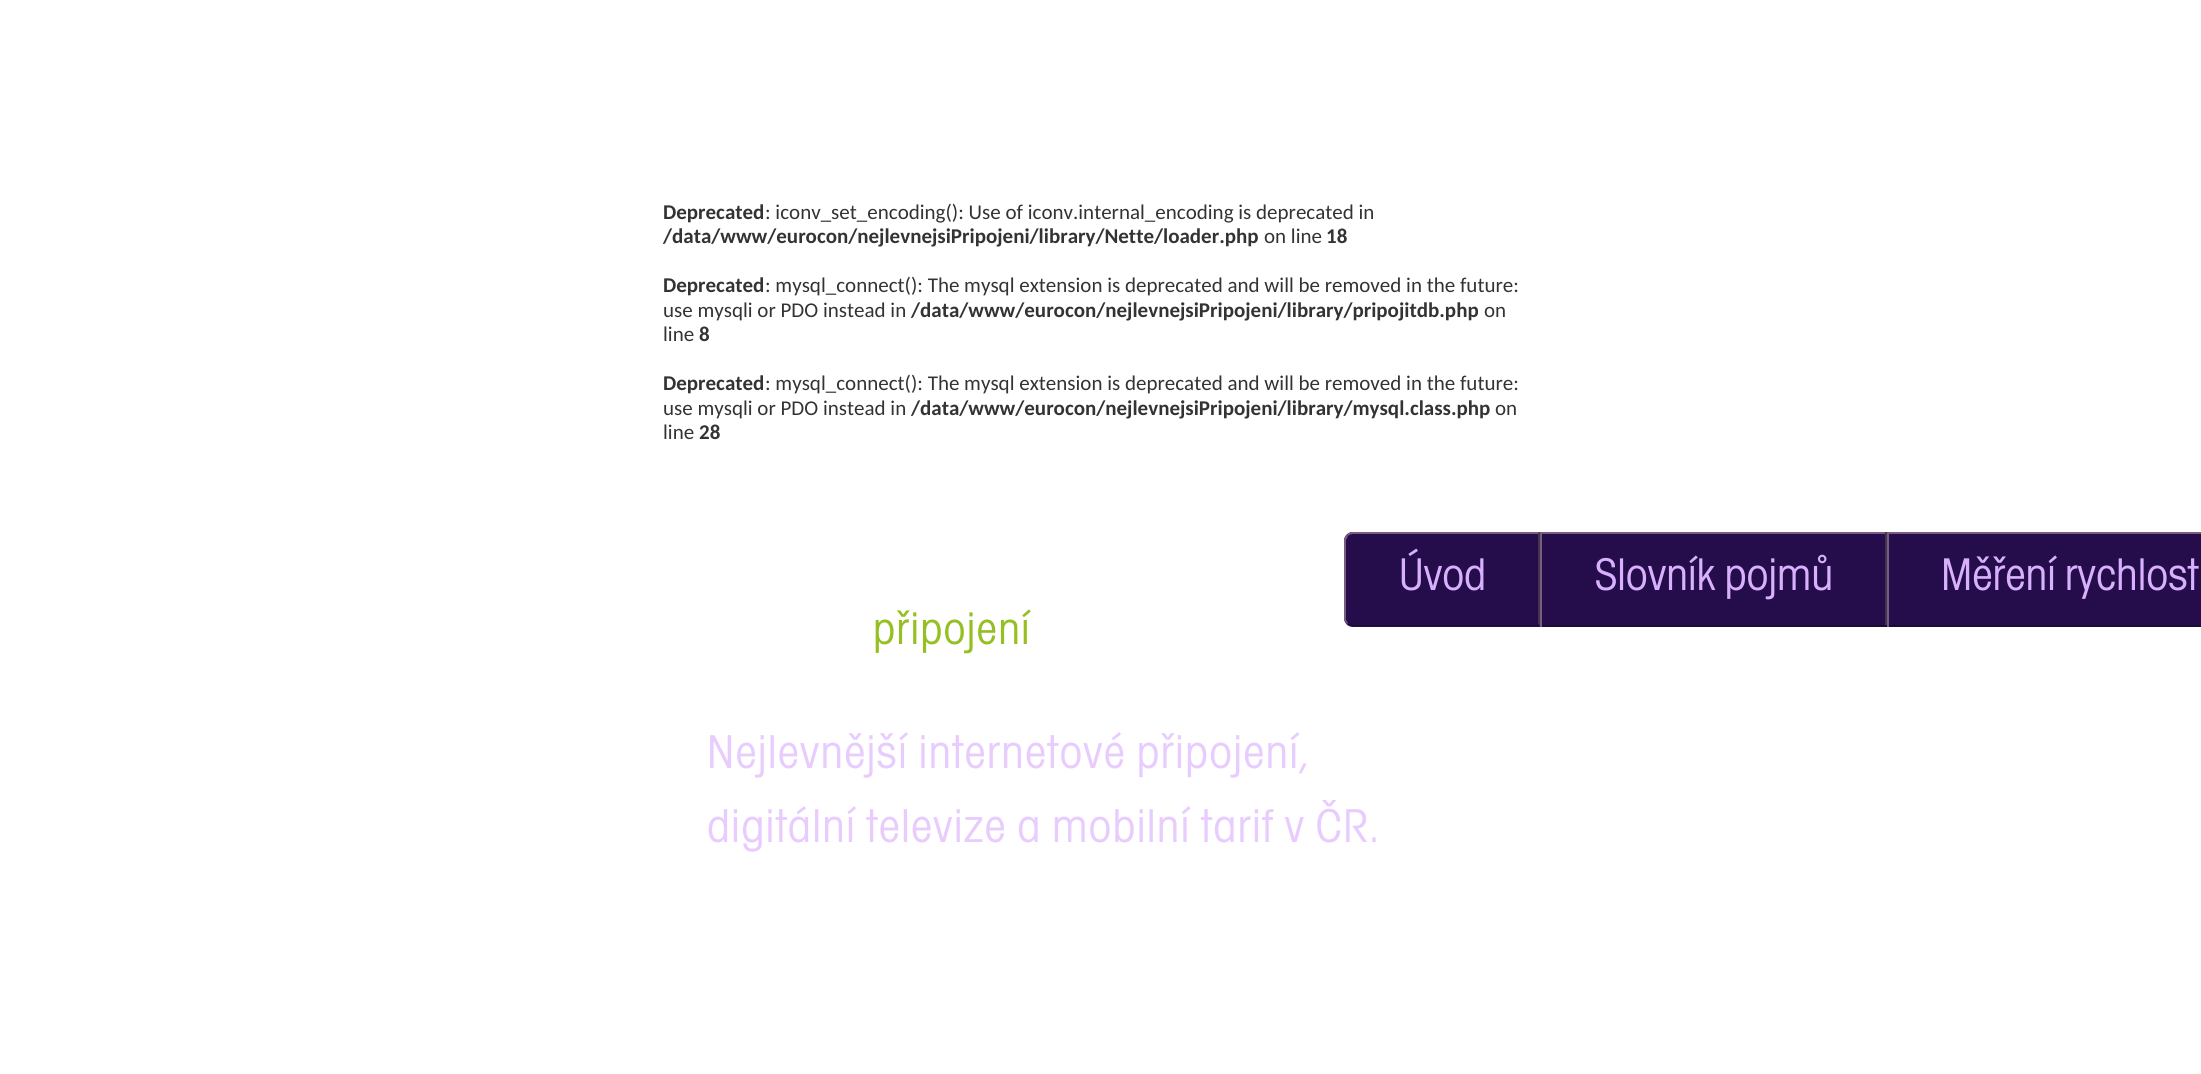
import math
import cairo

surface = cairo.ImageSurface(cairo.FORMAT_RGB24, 2201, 1074)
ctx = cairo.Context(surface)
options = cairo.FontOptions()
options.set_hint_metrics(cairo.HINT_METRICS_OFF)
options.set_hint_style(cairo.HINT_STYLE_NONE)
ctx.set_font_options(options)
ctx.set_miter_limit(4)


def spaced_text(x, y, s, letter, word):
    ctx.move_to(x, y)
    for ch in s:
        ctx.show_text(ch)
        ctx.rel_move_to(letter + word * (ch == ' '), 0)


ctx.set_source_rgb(1, 1, 1)
ctx.paint()
ctx.select_font_face("Carlito", cairo.FONT_SLANT_NORMAL, cairo.FONT_WEIGHT_BOLD)
ctx.set_font_size(21)
ctx.set_source_rgb(0.2, 0.2, 0.2)
ctx.move_to(663, 219)
ctx.show_text("Deprecated")
ctx.select_font_face("Carlito")
ctx.move_to(765, 219)
ctx.show_text(": iconv_set_encoding(): Use of iconv.internal_encoding is deprecated in")
ctx.select_font_face("Carlito", cairo.FONT_SLANT_NORMAL, cairo.FONT_WEIGHT_BOLD)
ctx.move_to(663, 243)
ctx.show_text("/data/www/eurocon/nejlevnejsiPripojeni/library/Nette/loader.php")
ctx.select_font_face("Carlito")
ctx.move_to(1264, 243)
ctx.show_text("on line")
ctx.select_font_face("Carlito", cairo.FONT_SLANT_NORMAL, cairo.FONT_WEIGHT_BOLD)
ctx.move_to(1326, 243)
ctx.show_text("18")
ctx.move_to(663, 292)
ctx.show_text("Deprecated")
ctx.select_font_face("Carlito")
ctx.move_to(765, 292)
ctx.show_text(": mysql_connect(): The mysql extension is deprecated and will be removed in the future:")
ctx.move_to(663, 317)
ctx.show_text("use mysqli or PDO instead in")
ctx.select_font_face("Carlito", cairo.FONT_SLANT_NORMAL, cairo.FONT_WEIGHT_BOLD)
ctx.move_to(911, 317)
ctx.show_text("/data/www/eurocon/nejlevnejsiPripojeni/library/pripojitdb.php")
ctx.select_font_face("Carlito")
ctx.move_to(1484, 317)
ctx.show_text("on")
ctx.move_to(663, 341)
ctx.show_text("line")
ctx.select_font_face("Carlito", cairo.FONT_SLANT_NORMAL, cairo.FONT_WEIGHT_BOLD)
ctx.move_to(699, 341)
ctx.show_text("8")
ctx.move_to(663, 390)
ctx.show_text("Deprecated")
ctx.select_font_face("Carlito")
ctx.move_to(765, 390)
ctx.show_text(": mysql_connect(): The mysql extension is deprecated and will be removed in the future:")
ctx.move_to(663, 415)
ctx.show_text("use mysqli or PDO instead in")
ctx.select_font_face("Carlito", cairo.FONT_SLANT_NORMAL, cairo.FONT_WEIGHT_BOLD)
ctx.move_to(911, 415)
ctx.show_text("/data/www/eurocon/nejlevnejsiPripojeni/library/mysql.class.php")
ctx.select_font_face("Carlito")
ctx.move_to(1495, 415)
ctx.show_text("on")
ctx.move_to(663, 439)
ctx.show_text("line")
ctx.select_font_face("Carlito", cairo.FONT_SLANT_NORMAL, cairo.FONT_WEIGHT_BOLD)
ctx.move_to(699, 439)
ctx.show_text("28")
ctx.set_source_rgb(0.145, 0.051, 0.294)
ctx.new_path()
ctx.move_to(1353, 532)
ctx.line_to(1540, 532)
ctx.line_to(1540, 627)
ctx.line_to(1353, 627)
ctx.curve_to(1348, 627, 1344, 623, 1344, 618)
ctx.line_to(1344, 541)
ctx.curve_to(1344, 536, 1348, 532, 1353, 532)
ctx.close_path()
ctx.fill()
ctx.set_source_rgb(0.482, 0.357, 0.514)
ctx.new_path()
ctx.move_to(1353, 532)
ctx.curve_to(1350, 532, 1348, 533, 1347, 535)
ctx.line_to(1348, 536)
ctx.curve_to(1349, 535, 1351, 534, 1353, 534)
ctx.line_to(1538, 534)
ctx.line_to(1540, 532)
ctx.close_path()
ctx.fill()
ctx.set_source_rgb(0.271, 0.2, 0.294)
ctx.new_path()
ctx.move_to(1540, 532)
ctx.line_to(1538, 534)
ctx.line_to(1538, 624)
ctx.line_to(1540, 626)
ctx.close_path()
ctx.fill()
ctx.set_source_rgb(0.102, 0.051, 0.196)
ctx.new_path()
ctx.move_to(1540, 626)
ctx.line_to(1351, 626)
ctx.line_to(1347, 624)
ctx.line_to(1348, 623)
ctx.curve_to(1349, 624, 1351, 625, 1353, 625)
ctx.line_to(1538, 625)
ctx.line_to(1538, 624)
ctx.close_path()
ctx.fill()
ctx.set_source_rgb(0.471, 0.365, 0.502)
ctx.new_path()
ctx.move_to(1344, 541)
ctx.line_to(1344, 618)
ctx.curve_to(1344, 620, 1345, 622, 1347, 624)
ctx.line_to(1348, 623)
ctx.curve_to(1347, 622, 1346, 620, 1346, 619)
ctx.line_to(1346, 540)
ctx.line_to(1348, 536)
ctx.line_to(1347, 535)
ctx.curve_to(1345, 536, 1344, 538, 1344, 541)
ctx.close_path()
ctx.fill()
ctx.select_font_face("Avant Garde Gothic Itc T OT")
ctx.set_font_size(47.25)
ctx.set_source_rgb(0.847, 0.69, 0.992)
ctx.move_to(1399, 590)
ctx.show_text("Úvod")
ctx.set_source_rgb(0.145, 0.051, 0.294)
ctx.rectangle(1542, 534, 343, 91)
ctx.fill()
ctx.set_source_rgb(0.482, 0.357, 0.514)
ctx.rectangle(1540, 532, 661, 2)
ctx.fill()
ctx.set_source_rgb(0.271, 0.2, 0.294)
ctx.rectangle(1885, 532, 2, 95)
ctx.fill()
ctx.set_source_rgb(0.102, 0.051, 0.196)
ctx.rectangle(1540, 625, 661, 2)
ctx.fill()
ctx.set_source_rgb(0.471, 0.365, 0.502)
ctx.rectangle(1540, 532, 2, 95)
ctx.fill()
ctx.set_source_rgb(0.847, 0.69, 0.992)
ctx.move_to(1595, 590)
ctx.show_text("Slovník pojmů")
ctx.set_source_rgb(0.145, 0.051, 0.294)
ctx.rectangle(1889, 534, 312, 91)
ctx.fill()
ctx.set_source_rgb(0.471, 0.365, 0.502)
ctx.rectangle(1887, 532, 2, 95)
ctx.fill()
ctx.set_source_rgb(0.847, 0.69, 0.992)
ctx.move_to(1941, 590)
ctx.show_text("Měření rychlost")
ctx.set_source_rgb(0.584, 0.749, 0.133)
spaced_text(873, 644, "připojení", 1.25, 0)
ctx.set_font_size(49)
ctx.set_source_rgb(0.906, 0.8, 0.992)
spaced_text(707, 768, "Nejlevnější internetové připojení,", 1.2, 0)
spaced_text(707, 842, "digitální televize a mobilní tarif v ČR.", 1.2, 0)
surface.write_to_png("page.png")
